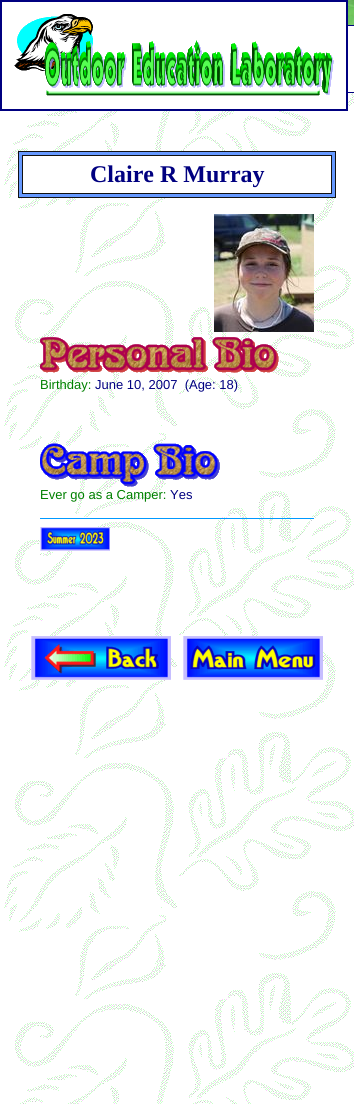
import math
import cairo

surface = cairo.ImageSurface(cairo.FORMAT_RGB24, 354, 1104)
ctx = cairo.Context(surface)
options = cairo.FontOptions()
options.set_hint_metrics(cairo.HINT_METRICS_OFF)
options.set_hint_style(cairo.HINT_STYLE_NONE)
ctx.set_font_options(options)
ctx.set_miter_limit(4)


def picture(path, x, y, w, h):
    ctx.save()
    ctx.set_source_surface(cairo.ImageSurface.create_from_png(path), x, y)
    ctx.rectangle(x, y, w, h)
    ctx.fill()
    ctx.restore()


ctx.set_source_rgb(1, 1, 1)
ctx.paint()
picture("img1.png", 4, 93, 350, 1011)
ctx.set_source_rgb(1, 1, 1)
ctx.rectangle(18, 93, 328, 16)
ctx.fill()
ctx.set_source_rgb(0, 0, 0.502)
ctx.rectangle(0, 0, 348, 2)
ctx.fill()
ctx.rectangle(346, 0, 2, 111)
ctx.fill()
ctx.rectangle(0, 109, 348, 2)
ctx.fill()
ctx.rectangle(0, 0, 2, 111)
ctx.fill()
picture("img2.png", 14, 14, 320, 82)
picture("img3.png", 348, 0, 6, 25)
ctx.rectangle(348, 25, 6, 1)
ctx.fill()
ctx.rectangle(348, 92, 6, 1)
ctx.fill()
ctx.set_source_rgb(0.4, 0.6, 1)
ctx.rectangle(19, 152, 316, 45)
ctx.fill()
ctx.set_source_rgb(0.067, 0.067, 0.067)
ctx.rectangle(18, 151, 318, 1)
ctx.fill()
ctx.rectangle(335, 151, 1, 47)
ctx.fill()
ctx.rectangle(18, 197, 318, 1)
ctx.fill()
ctx.rectangle(18, 151, 1, 47)
ctx.fill()
ctx.set_source_rgb(1, 1, 1)
ctx.rectangle(23, 156, 308, 37)
ctx.fill()
ctx.set_source_rgb(0.067, 0.067, 0.067)
ctx.rectangle(22, 155, 310, 1)
ctx.fill()
ctx.rectangle(331, 155, 1, 39)
ctx.fill()
ctx.rectangle(22, 193, 310, 1)
ctx.fill()
ctx.rectangle(22, 155, 1, 39)
ctx.fill()
ctx.select_font_face("Liberation Serif", cairo.FONT_SLANT_NORMAL, cairo.FONT_WEIGHT_BOLD)
ctx.set_font_size(24)
ctx.set_source_rgb(0, 0, 0.502)
ctx.move_to(90, 182)
ctx.show_text("Claire R Murray")
picture("img4.png", 214, 214, 100, 118)
picture("img5.png", 40, 337, 239, 36)
ctx.select_font_face("Liberation Sans")
ctx.set_font_size(13)
ctx.set_source_rgb(0, 0.502, 0)
ctx.move_to(40, 389)
ctx.show_text("Birthday:")
ctx.set_source_rgb(0, 0, 0.502)
ctx.move_to(95, 389)
ctx.show_text("June 10, 2007  (Age: 18)")
picture("img6.png", 40, 443, 180, 44)
ctx.set_source_rgb(0, 0.502, 0)
ctx.move_to(40, 499)
ctx.show_text("Ever go as a Camper:")
ctx.set_source_rgb(0, 0, 0.502)
ctx.move_to(170, 499)
ctx.show_text("Yes")
ctx.set_source_rgb(0, 0.6, 1)
ctx.rectangle(40, 518, 274, 1)
ctx.fill()
picture("img7.png", 40, 527, 70, 24)
picture("img8.png", 31, 636, 140, 44)
picture("img9.png", 183, 636, 140, 44)
surface.write_to_png("page.png")
